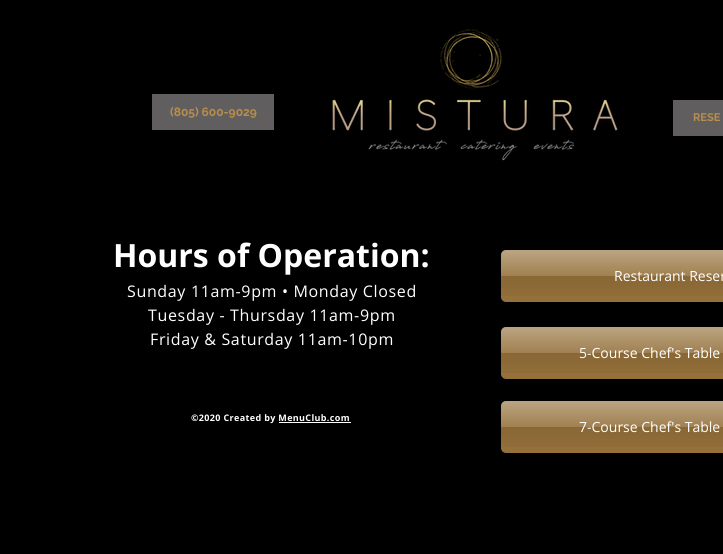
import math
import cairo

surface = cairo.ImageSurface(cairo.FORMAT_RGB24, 723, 554)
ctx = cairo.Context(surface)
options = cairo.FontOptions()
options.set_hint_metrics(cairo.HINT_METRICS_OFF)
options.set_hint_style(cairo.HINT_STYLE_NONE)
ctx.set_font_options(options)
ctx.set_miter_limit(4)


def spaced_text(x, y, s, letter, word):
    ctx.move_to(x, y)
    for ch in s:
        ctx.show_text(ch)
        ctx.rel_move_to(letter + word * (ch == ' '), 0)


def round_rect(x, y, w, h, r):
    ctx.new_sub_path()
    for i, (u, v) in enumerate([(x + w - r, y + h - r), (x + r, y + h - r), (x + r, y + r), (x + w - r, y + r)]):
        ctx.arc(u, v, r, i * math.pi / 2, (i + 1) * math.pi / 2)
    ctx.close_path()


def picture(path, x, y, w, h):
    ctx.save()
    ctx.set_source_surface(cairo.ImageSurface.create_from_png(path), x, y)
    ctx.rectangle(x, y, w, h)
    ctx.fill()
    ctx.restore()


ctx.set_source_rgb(0, 0, 0)
ctx.paint()
ctx.set_source_rgb(0.376, 0.369, 0.369)
ctx.rectangle(152, 94, 122, 36)
ctx.fill()
ctx.select_font_face("Raleway", cairo.FONT_SLANT_NORMAL, cairo.FONT_WEIGHT_BOLD)
ctx.set_font_size(12)
ctx.set_source_rgb(0.725, 0.553, 0.294)
ctx.move_to(170, 116)
ctx.show_text("(805) 600-9029")
picture("img1.png", 332, 29, 286, 132)
ctx.set_source_rgb(0.376, 0.369, 0.369)
ctx.rectangle(673, 100, 50, 36)
ctx.fill()
ctx.set_font_size(11)
ctx.set_source_rgb(0.725, 0.553, 0.294)
ctx.move_to(693, 121)
ctx.show_text("RESE")
ctx.select_font_face("Open Sans", cairo.FONT_SLANT_NORMAL, cairo.FONT_WEIGHT_BOLD)
ctx.set_font_size(32)
ctx.set_source_rgb(1, 1, 1)
ctx.move_to(113, 267)
ctx.show_text("Hours of Operation:")
ctx.select_font_face("Open Sans")
ctx.set_font_size(16)
spaced_text(127, 297, "Sunday 11am-9pm • Monday Closed", 0.65, 0)
spaced_text(148, 321, "Tuesday - Thursday 11am-9pm", 0.65, 0)
spaced_text(150, 345, "Friday & Saturday 11am-10pm", 0.65, 0)
ctx.set_source_rgb(0.58, 0.439, 0.227)
round_rect(501, 250, 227, 52, 5)
ctx.fill()
picture("img2.png", 501, 250, 222, 46)
ctx.set_font_size(14)
ctx.set_source_rgb(1, 1, 1)
ctx.move_to(614, 281)
ctx.show_text("Restaurant Reser")
ctx.set_source_rgb(0.58, 0.439, 0.227)
round_rect(501, 327, 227, 52, 5)
ctx.fill()
picture("img2.png", 501, 327, 222, 46)
ctx.set_source_rgb(1, 1, 1)
ctx.move_to(579, 358)
ctx.show_text("5-Course Chef's Table")
ctx.select_font_face("Open Sans", cairo.FONT_SLANT_NORMAL, cairo.FONT_WEIGHT_BOLD)
ctx.set_font_size(9)
spaced_text(191, 421, "©2020 Created by MenuClub.com", 0.35, 0)
ctx.rectangle(279, 422, 72, 1)
ctx.fill()
ctx.set_source_rgb(0.58, 0.439, 0.227)
round_rect(501, 401, 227, 52, 5)
ctx.fill()
picture("img2.png", 501, 401, 222, 46)
ctx.select_font_face("Open Sans")
ctx.set_font_size(14)
ctx.set_source_rgb(1, 1, 1)
ctx.move_to(579, 432)
ctx.show_text("7-Course Chef's Table")
surface.write_to_png("page.png")
